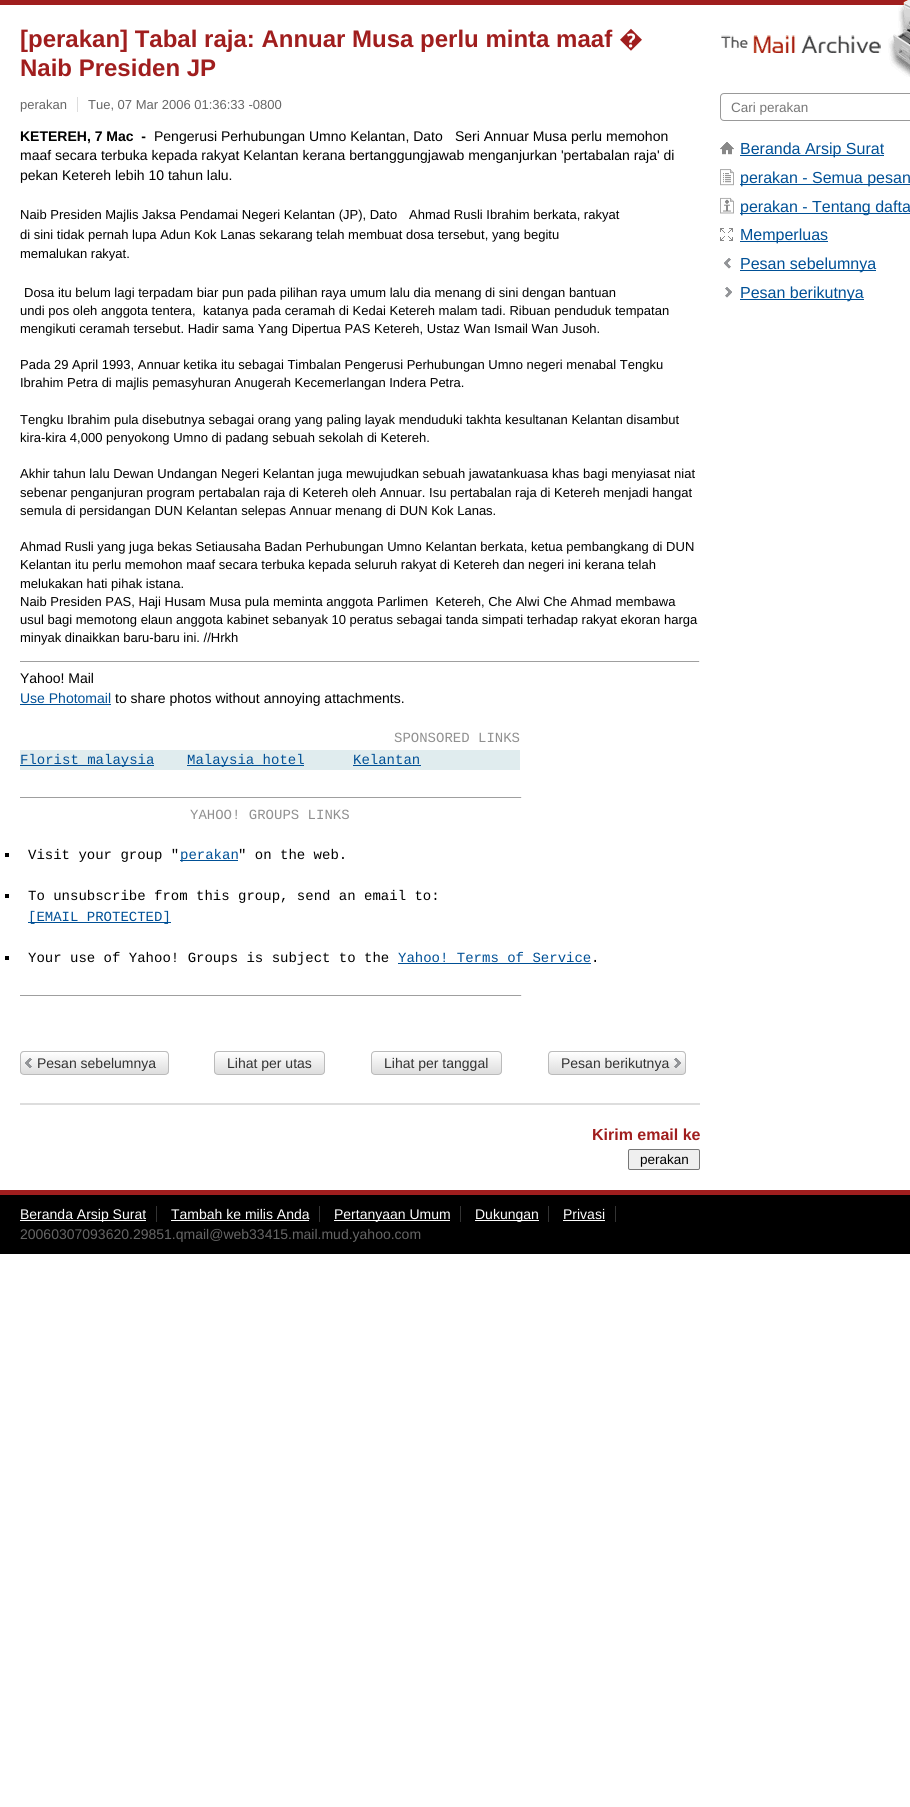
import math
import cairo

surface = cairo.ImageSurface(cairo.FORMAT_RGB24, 910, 1807)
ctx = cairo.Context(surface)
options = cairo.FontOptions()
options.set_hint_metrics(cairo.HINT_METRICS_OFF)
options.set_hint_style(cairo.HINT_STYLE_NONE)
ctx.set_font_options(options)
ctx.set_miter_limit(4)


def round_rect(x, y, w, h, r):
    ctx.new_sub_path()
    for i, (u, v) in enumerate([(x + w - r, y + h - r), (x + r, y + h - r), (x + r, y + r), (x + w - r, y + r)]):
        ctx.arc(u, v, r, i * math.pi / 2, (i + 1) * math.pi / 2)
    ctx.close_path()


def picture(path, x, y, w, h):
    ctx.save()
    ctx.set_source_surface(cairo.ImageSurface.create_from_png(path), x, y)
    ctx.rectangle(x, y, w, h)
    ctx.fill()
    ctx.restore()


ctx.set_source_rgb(1, 1, 1)
ctx.paint()
ctx.set_source_rgb(0.627, 0.118, 0.118)
ctx.rectangle(0, 0, 721, 5)
ctx.fill()
ctx.select_font_face("Liberation Sans", cairo.FONT_SLANT_NORMAL, cairo.FONT_WEIGHT_BOLD)
ctx.set_font_size(24)
ctx.move_to(20, 47)
ctx.show_text("[perakan] Tabal raja: Annuar Musa perlu minta maaf")
ctx.select_font_face("Noto Sans", cairo.FONT_SLANT_NORMAL, cairo.FONT_WEIGHT_BOLD)
ctx.move_to(619, 47)
ctx.show_text("�")
ctx.select_font_face("Liberation Sans", cairo.FONT_SLANT_NORMAL, cairo.FONT_WEIGHT_BOLD)
ctx.move_to(20, 76)
ctx.show_text("Naib Presiden JP")
ctx.select_font_face("Liberation Sans")
ctx.set_font_size(13)
ctx.set_source_rgb(0.4, 0.4, 0.4)
ctx.move_to(20, 109)
ctx.show_text("perakan")
ctx.set_source_rgb(0.867, 0.867, 0.867)
ctx.rectangle(77, 97, 1, 15)
ctx.fill()
ctx.set_source_rgb(0.4, 0.4, 0.4)
ctx.move_to(88, 109)
ctx.show_text("Tue, 07 Mar 2006 01:36:33 -0800")
ctx.select_font_face("Liberation Sans", cairo.FONT_SLANT_NORMAL, cairo.FONT_WEIGHT_BOLD)
ctx.set_font_size(14)
ctx.set_source_rgb(0, 0, 0)
ctx.move_to(20, 141)
ctx.show_text("KETEREH, 7 Mac  -")
ctx.select_font_face("Liberation Sans")
ctx.move_to(154, 141)
ctx.show_text("Pengerusi Perhubungan Umno Kelantan, Dato")
ctx.move_to(455, 141)
ctx.show_text("Seri Annuar Musa perlu memohon")
ctx.move_to(20, 160)
ctx.show_text("maaf secara terbuka kepada rakyat Kelantan kerana bertanggungjawab menganjurkan 'pertabalan raja' di")
ctx.move_to(20, 180)
ctx.show_text("pekan Ketereh lebih 10 tahun lalu.")
ctx.set_font_size(13)
ctx.move_to(20, 219)
ctx.show_text("Naib Presiden Majlis Jaksa Pendamai Negeri Kelantan (JP), Dato")
ctx.move_to(409, 219)
ctx.show_text("Ahmad Rusli Ibrahim berkata, rakyat")
ctx.move_to(20, 239)
ctx.show_text("di sini tidak pernah lupa Adun Kok Lanas sekarang telah membuat dosa tersebut, yang begitu")
ctx.move_to(20, 258)
ctx.show_text("memalukan rakyat.")
ctx.move_to(24, 297)
ctx.show_text("Dosa itu belum lagi terpadam biar pun pada pilihan raya umum lalu dia menang di sini dengan bantuan")
ctx.move_to(20, 315)
ctx.show_text("undi pos oleh anggota tentera,")
ctx.move_to(203, 315)
ctx.show_text("katanya pada ceramah di Kedai Ketereh malam tadi. Ribuan penduduk tempatan")
ctx.move_to(20, 333)
ctx.show_text("mengikuti ceramah tersebut. Hadir sama Yang Dipertua PAS Ketereh, Ustaz Wan Ismail Wan Jusoh.")
ctx.move_to(20, 369)
ctx.show_text("Pada 29 April 1993, Annuar ketika itu sebagai Timbalan Pengerusi Perhubungan Umno negeri menabal Tengku")
ctx.move_to(20, 387)
ctx.show_text("Ibrahim Petra di majlis pemasyhuran Anugerah Kecemerlangan Indera Petra.")
ctx.move_to(20, 424)
ctx.show_text("Tengku Ibrahim pula disebutnya sebagai orang yang paling layak menduduki takhta kesultanan Kelantan disambut")
ctx.move_to(20, 442)
ctx.show_text("kira-kira 4,000 penyokong Umno di padang sebuah sekolah di Ketereh.")
ctx.move_to(20, 478)
ctx.show_text("Akhir tahun lalu Dewan Undangan Negeri Kelantan juga mewujudkan sebuah jawatankuasa khas bagi menyiasat niat")
ctx.move_to(20, 497)
ctx.show_text("sebenar penganjuran program pertabalan raja di Ketereh oleh Annuar. Isu pertabalan raja di Ketereh menjadi hangat")
ctx.move_to(20, 515)
ctx.show_text("semula di persidangan DUN Kelantan selepas Annuar menang di DUN Kok Lanas.")
ctx.move_to(20, 551)
ctx.show_text("Ahmad Rusli yang juga bekas Setiausaha Badan Perhubungan Umno Kelantan berkata, ketua pembangkang di DUN")
ctx.move_to(20, 569)
ctx.show_text("Kelantan itu perlu memohon maaf secara terbuka kepada seluruh rakyat di Ketereh dan negeri ini kerana telah")
ctx.move_to(20, 588)
ctx.show_text("melukakan hati pihak istana.")
ctx.move_to(20, 606)
ctx.show_text("Naib Presiden PAS, Haji Husam Musa pula meminta anggota Parlimen  Ketereh, Che Alwi Che Ahmad membawa")
ctx.move_to(20, 624)
ctx.show_text("usul bagi memotong elaun anggota kabinet sebanyak 10 peratus sebagai tanda simpati terhadap rakyat ekoran harga")
ctx.move_to(20, 642)
ctx.show_text("minyak dinaikkan baru-baru ini. //Hrkh")
ctx.set_source_rgb(0.624, 0.624, 0.624)
ctx.rectangle(20, 661, 680, 1)
ctx.fill()
ctx.set_source_rgb(0.933, 0.933, 0.933)
ctx.rectangle(699, 661, 1, 1)
ctx.fill()
ctx.set_font_size(14)
ctx.set_source_rgb(0, 0, 0)
ctx.move_to(20, 683)
ctx.show_text("Yahoo! Mail")
ctx.set_source_rgb(0, 0.314, 0.588)
ctx.move_to(20, 703)
ctx.show_text("Use Photomail")
ctx.rectangle(20, 704, 91, 1)
ctx.fill()
ctx.set_source_rgb(0, 0, 0)
ctx.move_to(115, 703)
ctx.show_text("to share photos without annoying attachments.")
ctx.select_font_face("Liberation Mono")
ctx.set_source_rgb(0.565, 0.565, 0.565)
ctx.move_to(394, 742)
ctx.show_text("SPONSORED LINKS")
ctx.set_source_rgb(0.878, 0.925, 0.933)
ctx.rectangle(20, 750, 500, 20)
ctx.fill()
ctx.set_source_rgb(0, 0.314, 0.588)
ctx.rectangle(20, 765, 134, 1)
ctx.fill()
ctx.move_to(20, 764)
ctx.show_text("Florist malaysia")
ctx.rectangle(187, 765, 117, 1)
ctx.fill()
ctx.move_to(187, 764)
ctx.show_text("Malaysia hotel")
ctx.move_to(353, 764)
ctx.show_text("Kelantan")
ctx.rectangle(353, 765, 68, 1)
ctx.fill()
ctx.set_source_rgb(0.624, 0.624, 0.624)
ctx.rectangle(20, 797, 502, 1)
ctx.fill()
ctx.set_source_rgb(0.933, 0.933, 0.933)
ctx.rectangle(521, 797, 1, 1)
ctx.fill()
ctx.set_source_rgb(0.565, 0.565, 0.565)
ctx.move_to(190, 819)
ctx.show_text("YAHOO! GROUPS LINKS")
ctx.set_source_rgb(0, 0, 0)
ctx.rectangle(5, 853, 4, 4)
ctx.fill()
ctx.move_to(28, 859)
ctx.show_text("Visit your group \"")
ctx.set_source_rgb(0, 0.314, 0.588)
ctx.rectangle(180, 860, 58, 1)
ctx.fill()
ctx.move_to(180, 859)
ctx.show_text("perakan")
ctx.set_source_rgb(0, 0, 0)
ctx.move_to(238, 859)
ctx.show_text("\" on the web.")
ctx.rectangle(5, 894, 4, 4)
ctx.fill()
ctx.move_to(28, 900)
ctx.show_text("To unsubscribe from this group, send an email to:")
ctx.set_source_rgb(0, 0.314, 0.588)
ctx.rectangle(28, 922, 143, 1)
ctx.fill()
ctx.move_to(28, 921)
ctx.show_text("[EMAIL PROTECTED]")
ctx.set_source_rgb(0, 0, 0)
ctx.rectangle(5, 956, 4, 4)
ctx.fill()
ctx.move_to(28, 962)
ctx.show_text("Your use of Yahoo! Groups is subject to the")
ctx.set_source_rgb(0, 0.314, 0.588)
ctx.move_to(398, 962)
ctx.show_text("Yahoo! Terms of Service")
ctx.set_source_rgb(0, 0, 0)
ctx.move_to(591, 962)
ctx.show_text(".")
ctx.set_source_rgb(0, 0.314, 0.588)
ctx.rectangle(398, 963, 193, 1)
ctx.fill()
ctx.set_source_rgb(0.624, 0.624, 0.624)
ctx.rectangle(20, 995, 502, 1)
ctx.fill()
ctx.set_source_rgb(0.933, 0.933, 0.933)
ctx.rectangle(521, 995, 1, 1)
ctx.fill()
picture("img1.png", 20, 1051, 149, 24)
round_rect(20.5, 1051.5, 148, 23, 3.5)
ctx.set_source_rgb(0.733, 0.733, 0.733)
ctx.set_line_width(1)
ctx.stroke()
ctx.select_font_face("Liberation Sans")
ctx.set_source_rgb(0.2, 0.2, 0.2)
ctx.move_to(37, 1068)
ctx.show_text("Pesan sebelumnya")
ctx.save()
round_rect(214, 1051, 111, 24, 4)
ctx.clip()
gradient = cairo.LinearGradient(270, 1052, 270, 1074)
gradient.add_color_stop_rgba(0, 1, 1, 1, 1)
gradient.add_color_stop_rgba(1, 0.867, 0.867, 0.867, 1)
ctx.set_source(gradient)
ctx.rectangle(214, 1052, 111, 22)
ctx.fill()
ctx.restore()
round_rect(214.5, 1051.5, 110, 23, 3.5)
ctx.set_source_rgb(0.733, 0.733, 0.733)
ctx.stroke()
ctx.set_source_rgb(0.2, 0.2, 0.2)
ctx.move_to(227, 1068)
ctx.show_text("Lihat per utas")
ctx.save()
round_rect(371, 1051, 131, 24, 4)
ctx.clip()
gradient = cairo.LinearGradient(437, 1052, 437, 1074)
gradient.add_color_stop_rgba(0, 1, 1, 1, 1)
gradient.add_color_stop_rgba(1, 0.867, 0.867, 0.867, 1)
ctx.set_source(gradient)
ctx.rectangle(371, 1052, 131, 22)
ctx.fill()
ctx.restore()
round_rect(371.5, 1051.5, 130, 23, 3.5)
ctx.set_source_rgb(0.733, 0.733, 0.733)
ctx.stroke()
ctx.set_source_rgb(0.2, 0.2, 0.2)
ctx.move_to(384, 1068)
ctx.show_text("Lihat per tanggal")
picture("img2.png", 548, 1051, 138, 24)
round_rect(548.5, 1051.5, 137, 23, 3.5)
ctx.set_source_rgb(0.733, 0.733, 0.733)
ctx.stroke()
ctx.set_source_rgb(0.2, 0.2, 0.2)
ctx.move_to(561, 1068)
ctx.show_text("Pesan berikutnya")
ctx.set_source_rgb(0.867, 0.867, 0.867)
ctx.rectangle(20, 1103, 680, 2)
ctx.fill()
ctx.select_font_face("Liberation Sans", cairo.FONT_SLANT_NORMAL, cairo.FONT_WEIGHT_BOLD)
ctx.set_font_size(16)
ctx.set_source_rgb(0.627, 0.118, 0.118)
ctx.move_to(592, 1140)
ctx.show_text("Kirim email ke")
ctx.set_source_rgb(0.937, 0.937, 0.937)
round_rect(628.5, 1149.5, 71, 20, 1.5)
ctx.fill_preserve()
ctx.set_source_rgb(0.463, 0.463, 0.463)
ctx.stroke()
ctx.select_font_face("Liberation Sans")
ctx.set_font_size(13.5)
ctx.set_source_rgb(0, 0, 0)
ctx.move_to(640, 1164)
ctx.show_text("perakan")
picture("img3.png", 721, 0, 189, 77)
ctx.new_path()
ctx.move_to(724, 93.5)
ctx.line_to(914.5, 93.5)
ctx.line_to(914.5, 120.5)
ctx.line_to(724, 120.5)
ctx.curve_to(722, 120.5, 720.5, 119, 720.5, 117)
ctx.line_to(720.5, 97)
ctx.curve_to(720.5, 95, 722, 93.5, 724, 93.5)
ctx.close_path()
ctx.set_source_rgb(0.6, 0.6, 0.6)
ctx.stroke()
ctx.set_source_rgb(0.467, 0.467, 0.467)
ctx.move_to(731, 112)
ctx.show_text("Cari perakan")
picture("img4.png", 720, 142, 14, 13)
ctx.set_source_rgb(0, 0.314, 0.588)
ctx.rectangle(740, 155, 144, 1)
ctx.fill()
ctx.set_font_size(16)
ctx.move_to(740, 154)
ctx.show_text("Beranda Arsip Surat")
picture("img5.png", 720, 169, 14, 17)
ctx.rectangle(740, 184, 170, 1)
ctx.fill()
ctx.move_to(740, 183)
ctx.show_text("perakan - Semua pesan")
picture("img6.png", 720, 197, 14, 17)
ctx.rectangle(740, 213, 170, 1)
ctx.fill()
ctx.move_to(740, 212)
ctx.show_text("perakan - Tentang dafta")
picture("img7.png", 720, 228, 13, 13)
ctx.rectangle(740, 241, 88, 1)
ctx.fill()
ctx.move_to(740, 240)
ctx.show_text("Memperluas")
picture("img8.png", 724, 258, 7, 11)
ctx.rectangle(740, 270, 136, 1)
ctx.fill()
ctx.move_to(740, 269)
ctx.show_text("Pesan sebelumnya")
picture("img9.png", 725, 287, 7, 11)
ctx.rectangle(740, 299, 124, 1)
ctx.fill()
ctx.move_to(740, 298)
ctx.show_text("Pesan berikutnya")
ctx.set_source_rgb(0, 0, 0)
ctx.rectangle(0, 1195, 910, 59)
ctx.fill()
ctx.set_source_rgb(0.627, 0.118, 0.118)
ctx.rectangle(0, 1190, 910, 5)
ctx.fill()
ctx.set_source_rgb(1, 1, 1)
ctx.rectangle(20, 1220, 126, 1)
ctx.fill()
ctx.set_font_size(14)
ctx.move_to(20, 1219)
ctx.show_text("Beranda Arsip Surat")
ctx.set_source_rgb(0.2, 0.2, 0.2)
ctx.rectangle(156, 1206, 1, 16)
ctx.fill()
ctx.set_source_rgb(1, 1, 1)
ctx.move_to(171, 1219)
ctx.show_text("Tambah ke milis Anda")
ctx.set_source_rgb(0.2, 0.2, 0.2)
ctx.rectangle(319, 1206, 1, 16)
ctx.fill()
ctx.set_source_rgb(1, 1, 1)
ctx.rectangle(171, 1220, 138, 1)
ctx.fill()
ctx.rectangle(334, 1220, 116, 1)
ctx.fill()
ctx.move_to(334, 1219)
ctx.show_text("Pertanyaan Umum")
ctx.set_source_rgb(0.2, 0.2, 0.2)
ctx.rectangle(460, 1206, 1, 16)
ctx.fill()
ctx.set_source_rgb(1, 1, 1)
ctx.rectangle(475, 1220, 64, 1)
ctx.fill()
ctx.move_to(475, 1219)
ctx.show_text("Dukungan")
ctx.set_source_rgb(0.2, 0.2, 0.2)
ctx.rectangle(548, 1206, 1, 16)
ctx.fill()
ctx.set_source_rgb(1, 1, 1)
ctx.move_to(563, 1219)
ctx.show_text("Privasi")
ctx.set_source_rgb(0.2, 0.2, 0.2)
ctx.rectangle(615, 1206, 1, 16)
ctx.fill()
ctx.set_source_rgb(1, 1, 1)
ctx.rectangle(563, 1220, 42, 1)
ctx.fill()
ctx.set_source_rgb(0.4, 0.4, 0.4)
ctx.move_to(20, 1239)
ctx.show_text("20060307093620.29851.qmail@web33415.mail.mud.yahoo.com")
surface.write_to_png("page.png")
